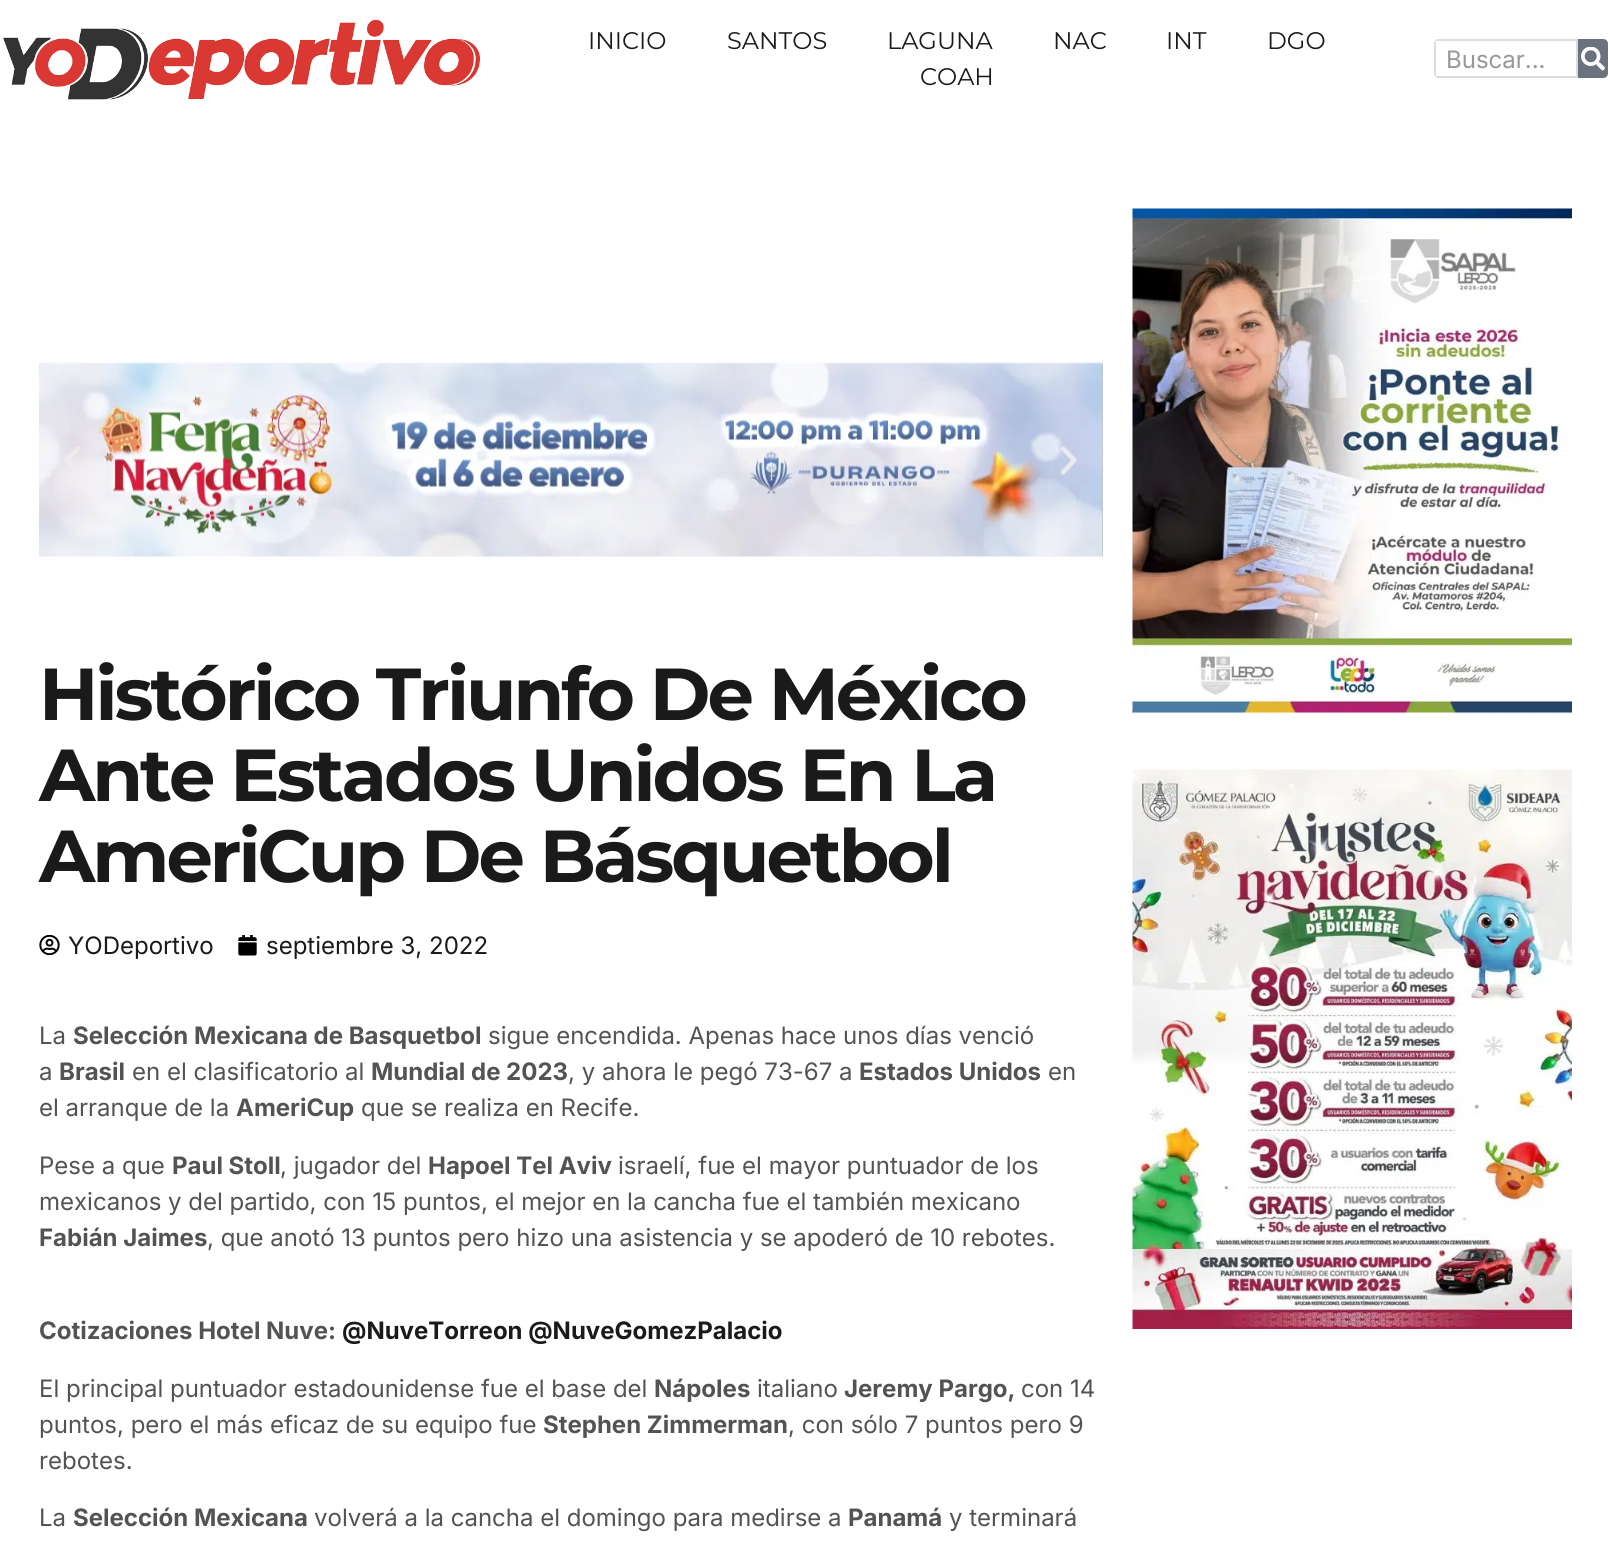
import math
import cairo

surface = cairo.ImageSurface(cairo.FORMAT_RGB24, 1610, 1556)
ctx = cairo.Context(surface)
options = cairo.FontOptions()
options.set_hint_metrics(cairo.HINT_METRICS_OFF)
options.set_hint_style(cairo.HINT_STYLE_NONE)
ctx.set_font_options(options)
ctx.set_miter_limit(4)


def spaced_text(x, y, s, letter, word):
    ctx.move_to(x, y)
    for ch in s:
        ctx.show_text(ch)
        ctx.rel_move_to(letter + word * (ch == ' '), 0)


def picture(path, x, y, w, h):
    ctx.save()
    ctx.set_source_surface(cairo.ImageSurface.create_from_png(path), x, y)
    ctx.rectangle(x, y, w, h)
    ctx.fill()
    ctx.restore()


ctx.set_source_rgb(1, 1, 1)
ctx.paint()
picture("img1.png", 3, 19, 477, 81)
ctx.select_font_face("Montserrat")
ctx.set_font_size(24)
ctx.set_source_rgb(0.102, 0.102, 0.102)
ctx.move_to(588, 49)
ctx.show_text("INICIO")
ctx.move_to(727, 49)
ctx.show_text("SANTOS")
ctx.move_to(887, 49)
ctx.show_text("LAGUNA")
ctx.move_to(1053, 49)
ctx.show_text("NAC")
ctx.move_to(1166, 49)
ctx.show_text("INT")
ctx.move_to(1267, 49)
ctx.show_text("DGO")
ctx.move_to(920, 85)
ctx.show_text("COAH")
ctx.set_source_rgb(0.863, 0.863, 0.863)
ctx.set_fill_rule(cairo.FILL_RULE_EVEN_ODD)
ctx.new_path()
ctx.move_to(1439, 39)
ctx.curve_to(1436, 39, 1434, 41, 1434, 44)
ctx.line_to(1434, 73)
ctx.curve_to(1434, 76, 1436, 78, 1439, 78)
ctx.line_to(1578, 78)
ctx.line_to(1578, 39)
ctx.close_path()
ctx.move_to(1436, 41)
ctx.line_to(1436, 76)
ctx.line_to(1576, 76)
ctx.line_to(1576, 41)
ctx.close_path()
ctx.fill()
ctx.select_font_face("Inter")
ctx.set_source_rgb(0.596, 0.596, 0.596)
ctx.move_to(1446, 68)
ctx.show_text("Buscar...")
ctx.set_source_rgb(0.412, 0.447, 0.49)
ctx.new_path()
ctx.move_to(1578, 39)
ctx.line_to(1603, 39)
ctx.curve_to(1606, 39, 1608, 41, 1608, 44)
ctx.line_to(1608, 73)
ctx.curve_to(1608, 76, 1606, 78, 1603, 78)
ctx.line_to(1578, 78)
ctx.close_path()
ctx.fill()
picture("img2.png", 1581, 47, 24, 24)
picture("img3.png", 39, 362, 1064, 195)
picture("img4.png", 1102, 362, 1, 195)
picture("img5.png", 65, 446, 16, 29)
picture("img6.png", 1060, 446, 17, 29)
ctx.select_font_face("Montserrat", cairo.FONT_SLANT_NORMAL, cairo.FONT_WEIGHT_BOLD)
ctx.set_font_size(73.5)
ctx.set_source_rgb(0.102, 0.102, 0.102)
spaced_text(39, 720, "Histórico Triunfo De México", -3, 0)
spaced_text(39, 801, "Ante Estados Unidos En La", -3, 0)
spaced_text(39, 882, "AmeriCup De Básquetbol", -3, 0)
picture("img7.png", 39, 935, 21, 21)
ctx.select_font_face("Inter")
ctx.set_font_size(24)
ctx.move_to(68, 954)
ctx.show_text("YODeportivo")
picture("img8.png", 238, 935, 19, 21)
ctx.move_to(266, 954)
ctx.show_text("septiembre 3, 2022")
ctx.set_source_rgb(0.325, 0.325, 0.325)
ctx.move_to(39, 1044)
ctx.show_text("La")
ctx.select_font_face("Inter", cairo.FONT_SLANT_NORMAL, cairo.FONT_WEIGHT_BOLD)
ctx.move_to(73, 1044)
ctx.show_text("Selección Mexicana de Basquetbol")
ctx.select_font_face("Inter")
ctx.move_to(488, 1044)
ctx.show_text("sigue encendida. Apenas hace unos días venció")
ctx.move_to(39, 1080)
ctx.show_text("a")
ctx.select_font_face("Inter", cairo.FONT_SLANT_NORMAL, cairo.FONT_WEIGHT_BOLD)
ctx.move_to(59, 1080)
ctx.show_text("Brasil")
ctx.select_font_face("Inter")
ctx.move_to(132, 1080)
ctx.show_text("en el clasificatorio al")
ctx.select_font_face("Inter", cairo.FONT_SLANT_NORMAL, cairo.FONT_WEIGHT_BOLD)
ctx.move_to(371, 1080)
ctx.show_text("Mundial de 2023")
ctx.select_font_face("Inter")
ctx.move_to(568, 1080)
ctx.show_text(", y ahora le pegó 73-67 a")
ctx.select_font_face("Inter", cairo.FONT_SLANT_NORMAL, cairo.FONT_WEIGHT_BOLD)
ctx.move_to(859, 1080)
ctx.show_text("Estados Unidos")
ctx.select_font_face("Inter")
ctx.move_to(1048, 1080)
ctx.show_text("en")
ctx.move_to(39, 1116)
ctx.show_text("el arranque de la")
ctx.select_font_face("Inter", cairo.FONT_SLANT_NORMAL, cairo.FONT_WEIGHT_BOLD)
ctx.move_to(236, 1116)
ctx.show_text("AmeriCup")
ctx.select_font_face("Inter")
ctx.move_to(361, 1116)
ctx.show_text("que se realiza en Recife.")
ctx.move_to(39, 1174)
ctx.show_text("Pese a que")
ctx.select_font_face("Inter", cairo.FONT_SLANT_NORMAL, cairo.FONT_WEIGHT_BOLD)
ctx.move_to(172, 1174)
ctx.show_text("Paul Stoll")
ctx.select_font_face("Inter")
ctx.move_to(280, 1174)
ctx.show_text(", jugador del")
ctx.select_font_face("Inter", cairo.FONT_SLANT_NORMAL, cairo.FONT_WEIGHT_BOLD)
ctx.move_to(428, 1174)
ctx.show_text("Hapoel Tel Aviv")
ctx.select_font_face("Inter")
ctx.move_to(618, 1174)
ctx.show_text("israelí, fue el mayor puntuador de los")
ctx.move_to(39, 1210)
ctx.show_text("mexicanos y del partido, con 15 puntos, el mejor en la cancha fue el también mexicano")
ctx.select_font_face("Inter", cairo.FONT_SLANT_NORMAL, cairo.FONT_WEIGHT_BOLD)
ctx.move_to(39, 1246)
ctx.show_text("Fabián Jaimes")
ctx.select_font_face("Inter")
ctx.move_to(207, 1246)
ctx.show_text(", que anotó 13 puntos pero hizo una asistencia y se apoderó de 10 rebotes.")
ctx.select_font_face("Inter", cairo.FONT_SLANT_NORMAL, cairo.FONT_WEIGHT_BOLD)
ctx.move_to(39, 1339)
ctx.show_text("Cotizaciones Hotel Nuve:")
ctx.set_source_rgb(0.102, 0.102, 0.102)
ctx.move_to(342, 1339)
ctx.show_text("@NuveTorreon @NuveGomezPalacio")
ctx.select_font_face("Inter")
ctx.set_source_rgb(0.325, 0.325, 0.325)
ctx.move_to(39, 1397)
ctx.show_text("El principal puntuador estadounidense fue el base del")
ctx.select_font_face("Inter", cairo.FONT_SLANT_NORMAL, cairo.FONT_WEIGHT_BOLD)
ctx.move_to(654, 1397)
ctx.show_text("Nápoles")
ctx.select_font_face("Inter")
ctx.move_to(757, 1397)
ctx.show_text("italiano")
ctx.select_font_face("Inter", cairo.FONT_SLANT_NORMAL, cairo.FONT_WEIGHT_BOLD)
ctx.move_to(844, 1397)
ctx.show_text("Jeremy Pargo,")
ctx.select_font_face("Inter")
ctx.move_to(1021, 1397)
ctx.show_text("con 14")
ctx.move_to(39, 1433)
ctx.show_text("puntos, pero el más eficaz de su equipo fue")
ctx.select_font_face("Inter", cairo.FONT_SLANT_NORMAL, cairo.FONT_WEIGHT_BOLD)
ctx.move_to(543, 1433)
ctx.show_text("Stephen Zimmerman")
ctx.select_font_face("Inter")
ctx.move_to(788, 1433)
ctx.show_text(", con sólo 7 puntos pero 9")
ctx.move_to(39, 1469)
ctx.show_text("rebotes.")
ctx.move_to(39, 1526)
ctx.show_text("La")
ctx.select_font_face("Inter", cairo.FONT_SLANT_NORMAL, cairo.FONT_WEIGHT_BOLD)
ctx.move_to(73, 1526)
ctx.show_text("Selección Mexicana")
ctx.select_font_face("Inter")
ctx.move_to(314, 1526)
ctx.show_text("volverá a la cancha el domingo para medirse a")
ctx.select_font_face("Inter", cairo.FONT_SLANT_NORMAL, cairo.FONT_WEIGHT_BOLD)
ctx.move_to(848, 1526)
ctx.show_text("Panamá")
ctx.select_font_face("Inter")
ctx.move_to(949, 1526)
ctx.show_text("y terminará")
picture("img9.png", 1132, 208, 440, 506)
picture("img10.png", 1132, 769, 440, 560)
surface.write_to_png("page.png")
